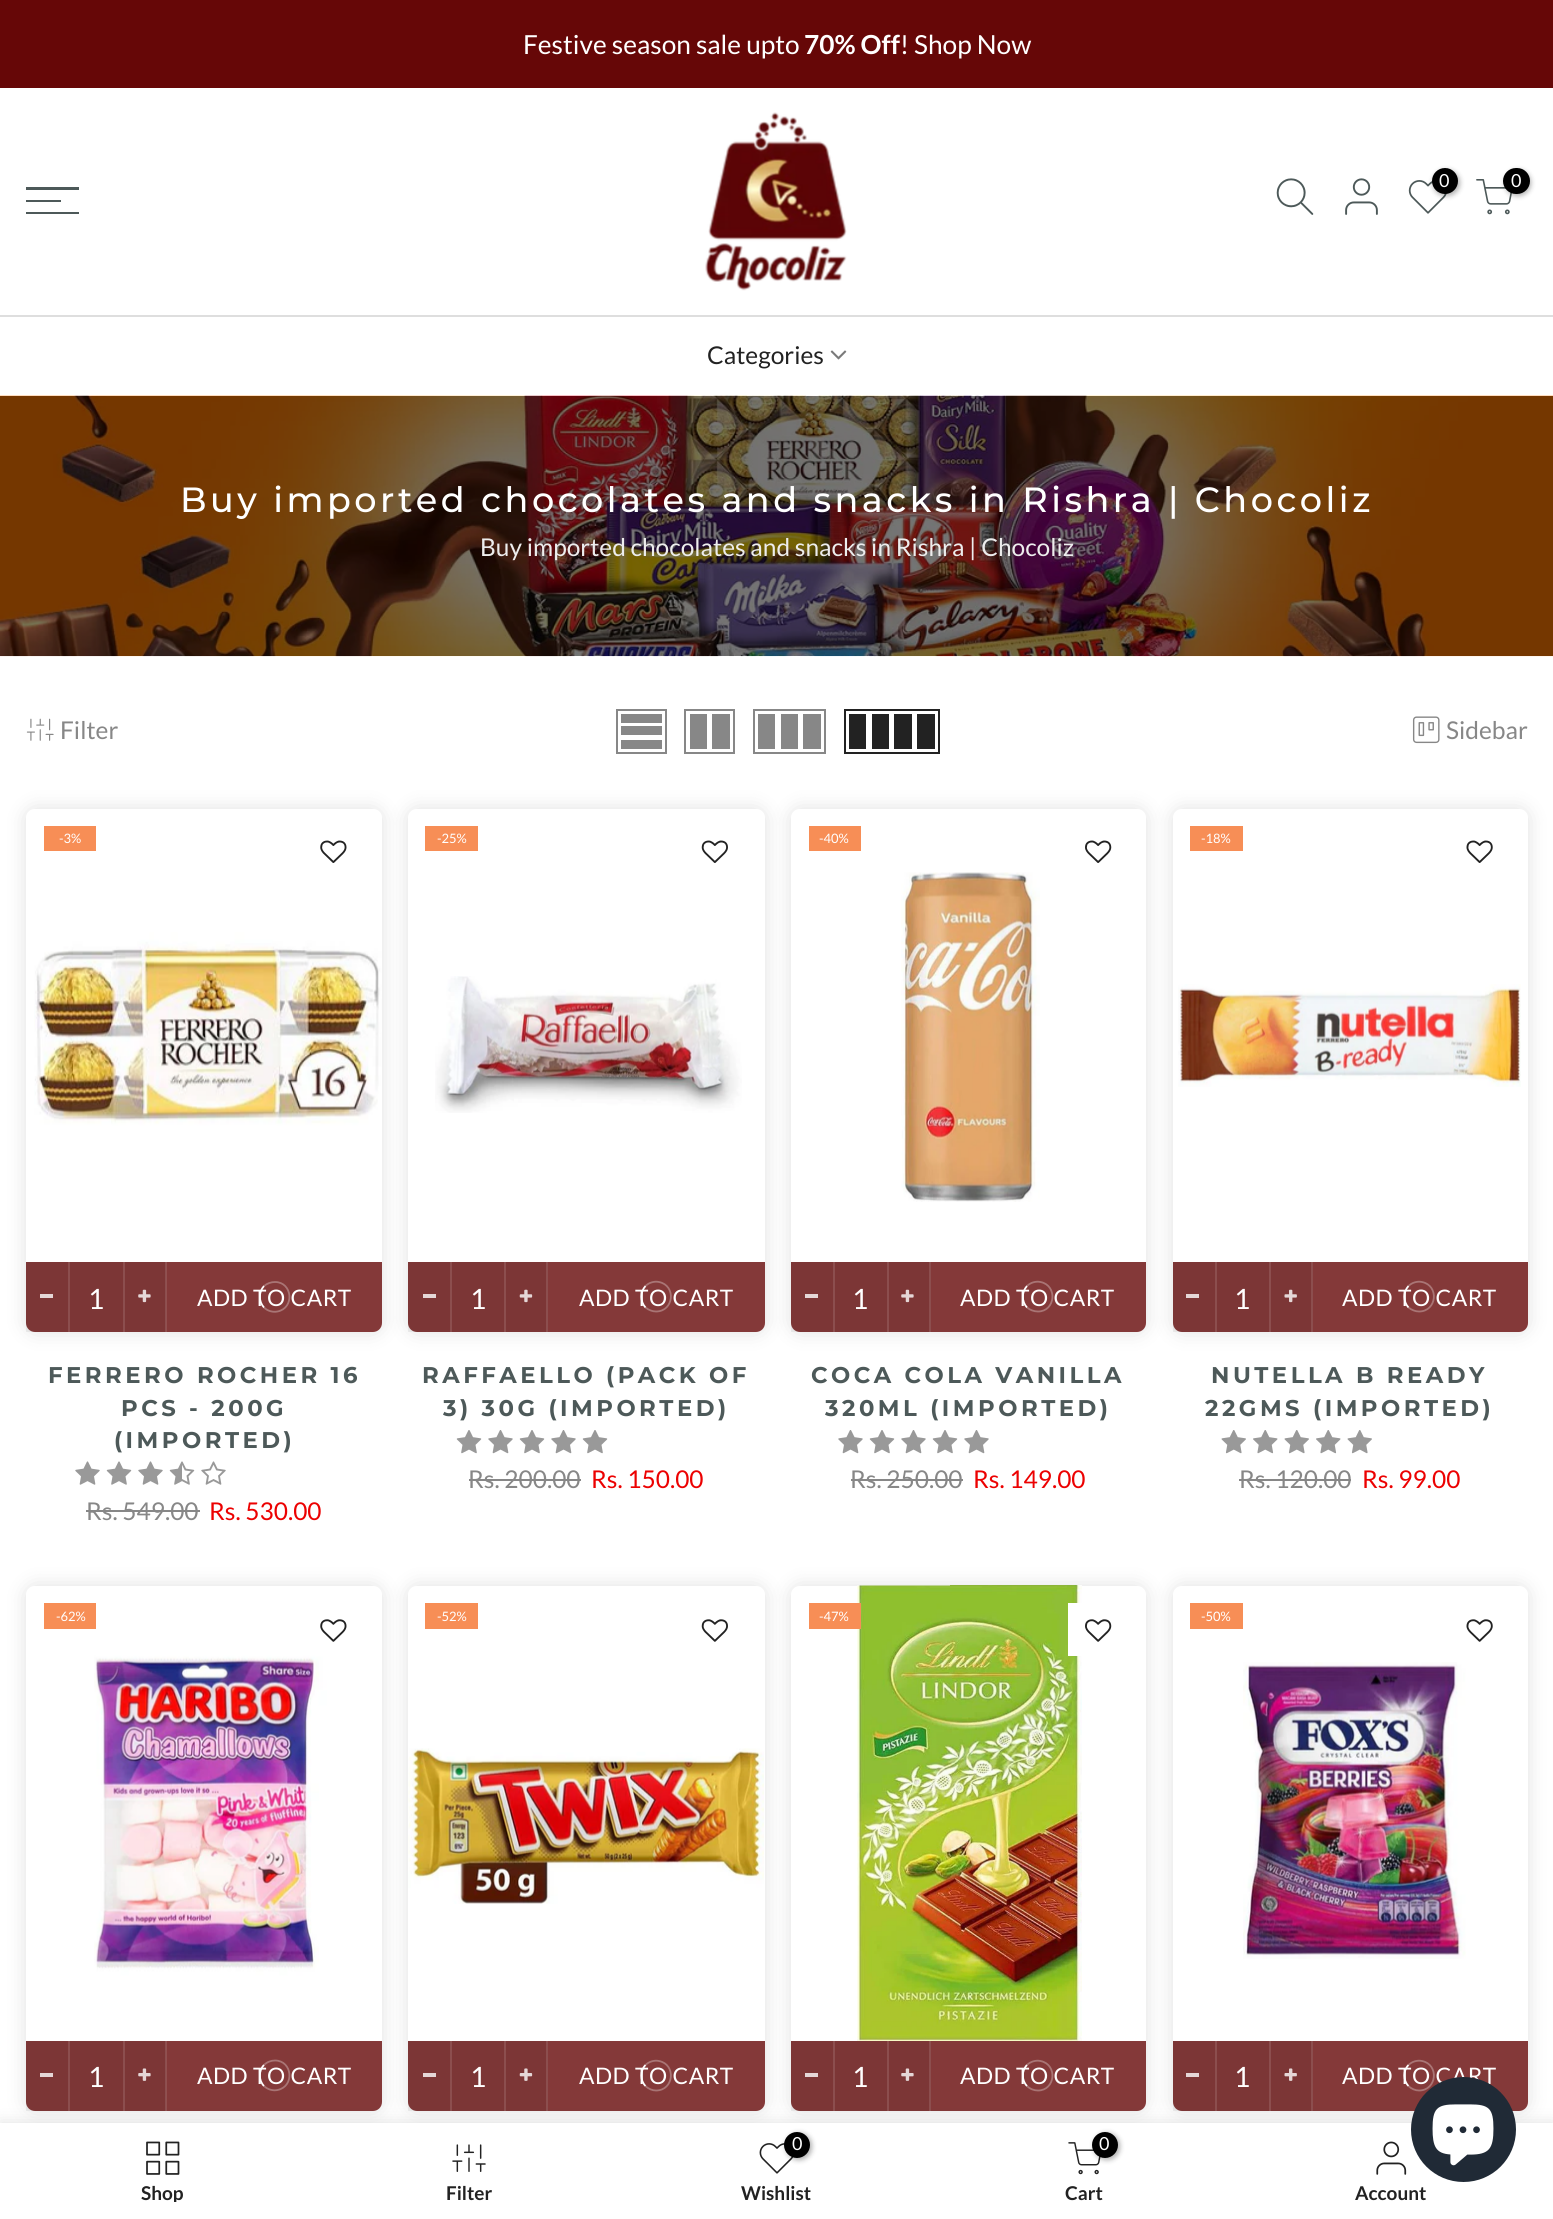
import math
import cairo

surface = cairo.ImageSurface(cairo.FORMAT_RGB24, 1553, 2219)
ctx = cairo.Context(surface)
options = cairo.FontOptions()
options.set_hint_metrics(cairo.HINT_METRICS_OFF)
options.set_hint_style(cairo.HINT_STYLE_NONE)
ctx.set_font_options(options)
ctx.set_miter_limit(4)


def spaced_text(x, y, s, letter, word):
    ctx.move_to(x, y)
    for ch in s:
        ctx.show_text(ch)
        ctx.rel_move_to(letter + word * (ch == ' '), 0)


def round_rect(x, y, w, h, r):
    ctx.new_sub_path()
    for i, (u, v) in enumerate([(x + w - r, y + h - r), (x + r, y + h - r), (x + r, y + r), (x + w - r, y + r)]):
        ctx.arc(u, v, r, i * math.pi / 2, (i + 1) * math.pi / 2)
    ctx.close_path()


def shadow(x, y, w, h, r, blur, alpha):
    ctx.push_group_with_content(cairo.CONTENT_ALPHA)
    ctx.set_operator(cairo.OPERATOR_SOURCE)
    for i in range(15, -16, -2):
        e = blur * i / 6
        if min(w, h) + 2 * e > 0:
            ctx.set_source_rgba(0, 0, 0, alpha * math.erfc((i - 1) / 8.5) / 2)
            round_rect(x - e, y - e, w + 2 * e, h + 2 * e, max(0, min(r + e + blur * .6, min(w, h) / 2 + e)))
            ctx.fill()
    ctx.mask(ctx.pop_group())


def picture(path, x, y, w, h):
    ctx.save()
    ctx.set_source_surface(cairo.ImageSurface.create_from_png(path), x, y)
    ctx.rectangle(x, y, w, h)
    ctx.fill()
    ctx.restore()


ctx.set_source_rgb(1, 1, 1)
ctx.paint()
ctx.set_source_rgb(0.4, 0.031, 0.031)
ctx.rectangle(0, 0, 1553, 88)
ctx.fill()
ctx.select_font_face("Lato")
ctx.set_font_size(26.25)
ctx.set_source_rgb(1, 1, 1)
ctx.move_to(523, 54)
ctx.show_text("Festive season sale upto")
ctx.select_font_face("Lato", cairo.FONT_SLANT_NORMAL, cairo.FONT_WEIGHT_BOLD)
ctx.move_to(804, 54)
ctx.show_text("70% Off")
ctx.select_font_face("Lato")
ctx.move_to(900, 54)
ctx.show_text("! Shop Now")
picture("img1.png", 705, 112, 142, 179)
picture("img2.png", 1276, 178, 38, 37)
picture("img3.png", 1345, 178, 33, 37)
picture("img4.png", 1408, 180, 39, 34)
ctx.set_source_rgb(0, 0, 0)
shadow(1433, 170, 27, 26, 13, 2.5, 0.3)
ctx.set_source_rgb(0, 0, 0)
ctx.arc(1445, 181, 13, 0, 2 * math.pi)
ctx.fill()
ctx.set_font_size(18)
ctx.set_source_rgb(1, 1, 1)
ctx.move_to(1439, 187)
ctx.show_text("0")
picture("img5.png", 1476, 179, 36, 36)
ctx.set_source_rgb(0, 0, 0)
shadow(1505, 170, 26, 26, 13, 2.5, 0.3)
ctx.set_source_rgb(0, 0, 0)
round_rect(1503, 168, 27, 26, 13)
ctx.fill()
ctx.set_source_rgb(1, 1, 1)
ctx.move_to(1511, 187)
ctx.show_text("0")
ctx.set_source_rgb(0.302, 0.349, 0.349)
ctx.rectangle(26, 187, 53, 3)
ctx.fill()
ctx.rectangle(26, 200, 35, 2)
ctx.fill()
ctx.rectangle(26, 212, 53, 2)
ctx.fill()
ctx.set_source_rgb(0.871, 0.871, 0.871)
ctx.rectangle(0, 315, 1553, 2)
ctx.fill()
ctx.set_font_size(24.5)
ctx.set_source_rgb(0.133, 0.133, 0.133)
ctx.move_to(707, 364)
ctx.show_text("Categories")
picture("img6.png", 830, 350, 17, 10)
picture("img7.png", 0, 395, 1553, 262)
ctx.select_font_face("Montserrat Medium")
ctx.set_font_size(35)
ctx.set_source_rgb(1, 1, 1)
spaced_text(180, 512, "Buy imported chocolates and snacks in Rishra | Chocoliz", 3.5, 0)
ctx.select_font_face("Lato")
ctx.set_font_size(24.5)
ctx.set_source_rgb(0.929, 0.929, 0.929)
ctx.move_to(480, 556)
ctx.show_text("Buy imported chocolates and snacks in Rishra | Chocoliz")
picture("img8.png", 26, 718, 28, 23)
ctx.set_source_rgb(0.529, 0.529, 0.529)
ctx.move_to(60, 739)
ctx.show_text("Filter")
ctx.rectangle(617, 710, 49, 43)
ctx.stroke()
ctx.rectangle(621, 740, 41, 9)
ctx.fill()
ctx.rectangle(621, 726, 41, 9)
ctx.fill()
ctx.rectangle(621, 714, 41, 9)
ctx.fill()
ctx.rectangle(685, 710, 49, 43)
ctx.stroke()
ctx.rectangle(712, 714, 18, 35)
ctx.fill()
ctx.rectangle(690, 714, 17, 35)
ctx.fill()
ctx.rectangle(754, 710, 71, 43)
ctx.stroke()
ctx.rectangle(803, 714, 18, 35)
ctx.fill()
ctx.rectangle(781, 714, 17, 35)
ctx.fill()
ctx.rectangle(758, 714, 17, 35)
ctx.fill()
ctx.rectangle(845, 710, 94, 43)
ctx.set_source_rgb(0.133, 0.133, 0.133)
ctx.stroke()
ctx.rectangle(917, 714, 18, 35)
ctx.fill()
ctx.rectangle(894, 714, 18, 35)
ctx.fill()
ctx.rectangle(872, 714, 17, 35)
ctx.fill()
ctx.rectangle(849, 714, 17, 35)
ctx.fill()
picture("img9.png", 1412, 716, 28, 28)
ctx.set_source_rgb(0.529, 0.529, 0.529)
ctx.move_to(1446, 739)
ctx.show_text("Sidebar")
ctx.save()
ctx.set_fill_rule(cairo.FILL_RULE_EVEN_ODD)
ctx.new_path()
ctx.move_to(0, 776)
ctx.line_to(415, 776)
ctx.line_to(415, 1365)
ctx.line_to(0, 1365)
ctx.close_path()
ctx.move_to(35, 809)
ctx.line_to(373, 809)
ctx.curve_to(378, 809, 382, 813, 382, 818)
ctx.line_to(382, 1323)
ctx.curve_to(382, 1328, 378, 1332, 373, 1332)
ctx.line_to(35, 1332)
ctx.curve_to(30, 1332, 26, 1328, 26, 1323)
ctx.line_to(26, 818)
ctx.curve_to(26, 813, 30, 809, 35, 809)
ctx.close_path()
ctx.clip()
ctx.set_source_rgb(0, 0, 0)
shadow(26, 809, 356, 523, 9, 10.5, 0.12)
ctx.restore()
ctx.set_source_rgb(0.965, 0.557, 0.337)
ctx.rectangle(44, 826, 52, 25)
ctx.fill()
ctx.set_font_size(13)
ctx.set_source_rgb(1, 1, 1)
ctx.move_to(59, 843)
ctx.show_text("-3%")
picture("img10.png", 34, 858, 348, 355)
picture("img11.png", 320, 840, 27, 23)
ctx.set_source_rgba(0.4, 0.031, 0.031, 0.8)
ctx.new_path()
ctx.move_to(26, 1262)
ctx.line_to(382, 1262)
ctx.line_to(382, 1323)
ctx.curve_to(382, 1328, 378, 1332, 373, 1332)
ctx.line_to(35, 1332)
ctx.curve_to(30, 1332, 26, 1328, 26, 1323)
ctx.close_path()
ctx.fill()
ctx.set_source_rgba(0, 0, 0, 0.06)
ctx.rectangle(26, 1262, 42, 70)
ctx.fill()
ctx.set_source_rgb(0.549, 0.306, 0.306)
ctx.rectangle(68, 1262, 2, 70)
ctx.fill()
ctx.set_source_rgb(0.898, 0.843, 0.843)
ctx.rectangle(40, 1294, 13, 4)
ctx.fill()
ctx.set_source_rgb(0.486, 0.212, 0.212)
ctx.rectangle(125, 1262, 41, 70)
ctx.fill()
ctx.set_source_rgba(1, 1, 1, 0.12)
ctx.rectangle(165, 1262, 2, 70)
ctx.fill()
ctx.set_source_rgb(0.549, 0.306, 0.306)
ctx.rectangle(123, 1262, 2, 70)
ctx.fill()
picture("img12.png", 138, 1289, 13, 14)
ctx.set_source_rgb(0.486, 0.212, 0.212)
ctx.rectangle(70, 1262, 53, 70)
ctx.fill()
ctx.set_font_size(28)
ctx.set_source_rgb(1, 1, 1)
ctx.move_to(88, 1309)
ctx.show_text("1")
ctx.set_font_size(22.75)
spaced_text(197, 1306, "ADD TO CART", 0.5, 0)
ctx.new_path()
ctx.move_to(264, 1286)
ctx.curve_to(267, 1283.5, 271, 1282, 275, 1282)
ctx.curve_to(292.5, 1282, 295, 1308, 277.5, 1311.5)
ctx.curve_to(273, 1312.5, 267.5, 1311, 264, 1307.5)
ctx.set_source_rgb(0.663, 0.459, 0.459)
ctx.set_line_width(1.8)
ctx.stroke()
ctx.new_path()
ctx.move_to(264, 1307.5)
ctx.curve_to(258.5, 1301.5, 258.5, 1292, 264, 1286)
ctx.set_source_rgb(1, 1, 1)
ctx.stroke()
ctx.select_font_face("Montserrat", cairo.FONT_SLANT_NORMAL, cairo.FONT_WEIGHT_BOLD)
ctx.set_source_rgb(0.302, 0.349, 0.349)
spaced_text(48, 1383, "FERRERO ROCHER 16", 3.5, 0)
spaced_text(121, 1416, "PCS - 200G", 3.5, 0)
spaced_text(114, 1448, "(IMPORTED)", 3.5, 0)
picture("img13.png", 75, 1461, 25, 24)
picture("img14.png", 106, 1461, 26, 24)
picture("img13.png", 138, 1461, 25, 24)
picture("img15.png", 169, 1461, 26, 24)
picture("img16.png", 201, 1461, 25, 24)
ctx.select_font_face("Lato")
ctx.set_font_size(24.5)
ctx.set_source_rgb(0.529, 0.529, 0.529)
ctx.move_to(86, 1520)
ctx.show_text("Rs. 549.00")
ctx.rectangle(86, 1510, 114, 2)
ctx.fill()
ctx.set_source_rgb(0.925, 0.004, 0.004)
ctx.move_to(209, 1520)
ctx.show_text("Rs. 530.00")
ctx.save()
ctx.set_fill_rule(cairo.FILL_RULE_EVEN_ODD)
ctx.new_path()
ctx.move_to(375, 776)
ctx.line_to(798, 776)
ctx.line_to(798, 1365)
ctx.line_to(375, 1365)
ctx.close_path()
ctx.move_to(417, 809)
ctx.line_to(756, 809)
ctx.curve_to(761, 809, 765, 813, 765, 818)
ctx.line_to(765, 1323)
ctx.curve_to(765, 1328, 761, 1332, 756, 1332)
ctx.line_to(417, 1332)
ctx.curve_to(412, 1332, 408, 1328, 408, 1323)
ctx.line_to(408, 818)
ctx.curve_to(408, 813, 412, 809, 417, 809)
ctx.close_path()
ctx.clip()
ctx.set_source_rgb(0, 0, 0)
shadow(408, 809, 357, 523, 9, 10.5, 0.12)
ctx.restore()
ctx.set_source_rgb(0.965, 0.557, 0.337)
ctx.rectangle(425, 826, 53, 25)
ctx.fill()
ctx.set_font_size(13)
ctx.set_source_rgb(1, 1, 1)
ctx.move_to(437, 843)
ctx.show_text("-25%")
picture("img17.png", 435, 976, 307, 137)
picture("img18.png", 701, 840, 27, 23)
ctx.set_source_rgba(0.4, 0.031, 0.031, 0.8)
ctx.new_path()
ctx.move_to(408, 1262)
ctx.line_to(765, 1262)
ctx.line_to(765, 1323)
ctx.curve_to(765, 1328, 761, 1332, 756, 1332)
ctx.line_to(417, 1332)
ctx.curve_to(412, 1332, 408, 1328, 408, 1323)
ctx.close_path()
ctx.fill()
ctx.set_source_rgba(0, 0, 0, 0.06)
ctx.rectangle(408, 1262, 42, 70)
ctx.fill()
ctx.set_source_rgb(0.549, 0.306, 0.306)
ctx.rectangle(450, 1262, 2, 70)
ctx.fill()
ctx.set_source_rgb(0.898, 0.843, 0.843)
ctx.rectangle(423, 1294, 13, 4)
ctx.fill()
ctx.set_source_rgb(0.486, 0.212, 0.212)
ctx.rectangle(506, 1262, 40, 70)
ctx.fill()
ctx.set_source_rgb(0.549, 0.306, 0.306)
ctx.rectangle(546, 1262, 2, 70)
ctx.fill()
ctx.rectangle(504, 1262, 2, 70)
ctx.fill()
picture("img19.png", 519, 1289, 14, 14)
ctx.set_source_rgb(0.486, 0.212, 0.212)
ctx.rectangle(452, 1262, 52, 70)
ctx.fill()
ctx.set_font_size(28)
ctx.set_source_rgb(1, 1, 1)
ctx.move_to(470, 1309)
ctx.show_text("1")
ctx.set_font_size(22.75)
spaced_text(579, 1306, "ADD TO CART", 0.5, 0)
ctx.new_path()
ctx.move_to(645.5, 1286)
ctx.curve_to(649, 1282.5, 654.5, 1281, 659, 1282)
ctx.curve_to(676.5, 1285.5, 674, 1311.5, 656, 1311.5)
ctx.curve_to(652.5, 1311.5, 648.5, 1310, 645.5, 1307.5)
ctx.set_source_rgb(0.663, 0.459, 0.459)
ctx.stroke()
ctx.new_path()
ctx.move_to(645.5, 1307.5)
ctx.curve_to(640, 1301.5, 640, 1292, 645.5, 1286)
ctx.set_source_rgb(1, 1, 1)
ctx.stroke()
ctx.select_font_face("Montserrat", cairo.FONT_SLANT_NORMAL, cairo.FONT_WEIGHT_BOLD)
ctx.set_source_rgb(0.302, 0.349, 0.349)
spaced_text(422, 1383, "RAFFAELLO (PACK OF", 3.5, 0)
spaced_text(443, 1416, "3) 30G (IMPORTED)", 3.5, 0)
picture("img20.png", 456, 1430, 26, 24)
picture("img21.png", 488, 1430, 25, 24)
picture("img20.png", 519, 1430, 26, 24)
picture("img21.png", 551, 1430, 25, 24)
picture("img20.png", 582, 1430, 26, 24)
ctx.select_font_face("Lato")
ctx.set_font_size(24.5)
ctx.set_source_rgb(0.529, 0.529, 0.529)
ctx.move_to(468, 1488)
ctx.show_text("Rs. 200.00")
ctx.rectangle(469, 1479, 112, 2)
ctx.fill()
ctx.set_source_rgb(0.925, 0.004, 0.004)
ctx.move_to(591, 1488)
ctx.show_text("Rs. 150.00")
ctx.save()
ctx.set_fill_rule(cairo.FILL_RULE_EVEN_ODD)
ctx.new_path()
ctx.move_to(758, 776)
ctx.line_to(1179, 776)
ctx.line_to(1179, 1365)
ctx.line_to(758, 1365)
ctx.close_path()
ctx.move_to(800, 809)
ctx.line_to(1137, 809)
ctx.curve_to(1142, 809, 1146, 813, 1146, 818)
ctx.line_to(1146, 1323)
ctx.curve_to(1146, 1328, 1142, 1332, 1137, 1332)
ctx.line_to(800, 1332)
ctx.curve_to(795, 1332, 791, 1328, 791, 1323)
ctx.line_to(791, 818)
ctx.curve_to(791, 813, 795, 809, 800, 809)
ctx.close_path()
ctx.clip()
ctx.set_source_rgb(0, 0, 0)
shadow(791, 809, 355, 523, 9, 10.5, 0.12)
ctx.restore()
ctx.set_source_rgb(0.965, 0.557, 0.337)
ctx.rectangle(809, 826, 52, 25)
ctx.fill()
ctx.set_font_size(13)
ctx.set_source_rgb(1, 1, 1)
ctx.move_to(819, 843)
ctx.show_text("-40%")
picture("img22.png", 901, 872, 139, 330)
picture("img23.png", 1085, 840, 27, 23)
ctx.set_source_rgba(0.4, 0.031, 0.031, 0.8)
ctx.new_path()
ctx.move_to(791, 1262)
ctx.line_to(1146, 1262)
ctx.line_to(1146, 1323)
ctx.curve_to(1146, 1328, 1142, 1332, 1137, 1332)
ctx.line_to(800, 1332)
ctx.curve_to(795, 1332, 791, 1328, 791, 1323)
ctx.close_path()
ctx.fill()
ctx.set_source_rgba(0, 0, 0, 0.06)
ctx.rectangle(791, 1262, 42, 70)
ctx.fill()
ctx.set_source_rgb(0.549, 0.306, 0.306)
ctx.rectangle(833, 1262, 2, 70)
ctx.fill()
ctx.set_source_rgb(0.898, 0.843, 0.843)
ctx.rectangle(805, 1294, 13, 4)
ctx.fill()
ctx.set_source_rgb(0.486, 0.212, 0.212)
ctx.rectangle(889, 1262, 40, 70)
ctx.fill()
ctx.set_source_rgb(0.549, 0.306, 0.306)
ctx.rectangle(929, 1262, 2, 70)
ctx.fill()
ctx.rectangle(887, 1262, 2, 70)
ctx.fill()
picture("img12.png", 901, 1289, 13, 14)
ctx.set_source_rgb(0.486, 0.212, 0.212)
ctx.rectangle(835, 1262, 52, 70)
ctx.fill()
ctx.set_font_size(28)
ctx.set_source_rgb(1, 1, 1)
ctx.move_to(852, 1309)
ctx.show_text("1")
ctx.set_font_size(22.75)
spaced_text(960, 1306, "ADD TO CART", 0.5, 0)
ctx.new_path()
ctx.move_to(1027, 1286)
ctx.curve_to(1030.5, 1282.5, 1036, 1281, 1040.5, 1282)
ctx.curve_to(1058, 1285.5, 1055.5, 1311.5, 1038, 1311.5)
ctx.curve_to(1034, 1311.5, 1030, 1310, 1027, 1307.5)
ctx.set_source_rgb(0.663, 0.459, 0.459)
ctx.stroke()
ctx.new_path()
ctx.move_to(1027, 1307.5)
ctx.curve_to(1021.5, 1301.5, 1021.5, 1292, 1027, 1286)
ctx.set_source_rgb(1, 1, 1)
ctx.stroke()
ctx.select_font_face("Montserrat", cairo.FONT_SLANT_NORMAL, cairo.FONT_WEIGHT_BOLD)
ctx.set_source_rgb(0.302, 0.349, 0.349)
spaced_text(811, 1383, "COCA COLA VANILLA", 3.5, 0)
spaced_text(825, 1416, "320ML (IMPORTED)", 3.5, 0)
picture("img21.png", 838, 1430, 25, 24)
picture("img20.png", 869, 1430, 26, 24)
picture("img21.png", 901, 1430, 25, 24)
picture("img20.png", 932, 1430, 26, 24)
picture("img21.png", 964, 1430, 25, 24)
ctx.select_font_face("Lato")
ctx.set_font_size(24.5)
ctx.set_source_rgb(0.529, 0.529, 0.529)
ctx.move_to(850, 1488)
ctx.show_text("Rs. 250.00")
ctx.rectangle(851, 1479, 112, 2)
ctx.fill()
ctx.set_source_rgb(0.925, 0.004, 0.004)
ctx.move_to(973, 1488)
ctx.show_text("Rs. 149.00")
ctx.save()
ctx.set_fill_rule(cairo.FILL_RULE_EVEN_ODD)
ctx.new_path()
ctx.move_to(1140, 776)
ctx.line_to(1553, 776)
ctx.line_to(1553, 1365)
ctx.line_to(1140, 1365)
ctx.close_path()
ctx.move_to(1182, 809)
ctx.line_to(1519, 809)
ctx.curve_to(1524, 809, 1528, 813, 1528, 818)
ctx.line_to(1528, 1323)
ctx.curve_to(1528, 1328, 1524, 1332, 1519, 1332)
ctx.line_to(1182, 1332)
ctx.curve_to(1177, 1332, 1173, 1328, 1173, 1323)
ctx.line_to(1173, 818)
ctx.curve_to(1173, 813, 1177, 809, 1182, 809)
ctx.close_path()
ctx.clip()
ctx.set_source_rgb(0, 0, 0)
shadow(1173, 809, 355, 523, 9, 10.5, 0.12)
ctx.restore()
ctx.set_source_rgb(0.965, 0.557, 0.337)
ctx.rectangle(1190, 826, 53, 25)
ctx.fill()
ctx.set_font_size(13)
ctx.set_source_rgb(1, 1, 1)
ctx.move_to(1201, 843)
ctx.show_text("-18%")
picture("img24.png", 1178, 984, 343, 103)
picture("img25.png", 1466, 840, 27, 23)
ctx.set_source_rgba(0.4, 0.031, 0.031, 0.8)
ctx.new_path()
ctx.move_to(1173, 1262)
ctx.line_to(1528, 1262)
ctx.line_to(1528, 1323)
ctx.curve_to(1528, 1328, 1524, 1332, 1519, 1332)
ctx.line_to(1182, 1332)
ctx.curve_to(1177, 1332, 1173, 1328, 1173, 1323)
ctx.close_path()
ctx.fill()
ctx.set_source_rgba(0, 0, 0, 0.06)
ctx.rectangle(1173, 1262, 42, 70)
ctx.fill()
ctx.set_source_rgb(0.549, 0.306, 0.306)
ctx.rectangle(1215, 1262, 2, 70)
ctx.fill()
ctx.set_source_rgb(0.898, 0.843, 0.843)
ctx.rectangle(1186, 1294, 13, 4)
ctx.fill()
ctx.set_source_rgb(0.486, 0.212, 0.212)
ctx.rectangle(1271, 1262, 40, 70)
ctx.fill()
ctx.set_source_rgb(0.549, 0.306, 0.306)
ctx.rectangle(1311, 1262, 2, 70)
ctx.fill()
ctx.rectangle(1269, 1262, 2, 70)
ctx.fill()
picture("img26.png", 1284, 1289, 13, 14)
ctx.set_source_rgb(0.486, 0.212, 0.212)
ctx.rectangle(1217, 1262, 52, 70)
ctx.fill()
ctx.set_font_size(28)
ctx.set_source_rgb(1, 1, 1)
ctx.move_to(1234, 1309)
ctx.show_text("1")
ctx.set_font_size(22.75)
spaced_text(1342, 1306, "ADD TO CART", 0.5, 0)
ctx.new_path()
ctx.move_to(1408.5, 1286)
ctx.curve_to(1412, 1282.5, 1417.5, 1281, 1422, 1282)
ctx.curve_to(1439.5, 1285.5, 1437, 1311.5, 1419, 1311.5)
ctx.curve_to(1415.5, 1311.5, 1411.5, 1310, 1408.5, 1307.5)
ctx.set_source_rgb(0.663, 0.459, 0.459)
ctx.stroke()
ctx.new_path()
ctx.move_to(1408.5, 1307.5)
ctx.curve_to(1403, 1301.5, 1403, 1292, 1408.5, 1286)
ctx.set_source_rgb(1, 1, 1)
ctx.stroke()
ctx.select_font_face("Montserrat", cairo.FONT_SLANT_NORMAL, cairo.FONT_WEIGHT_BOLD)
ctx.set_source_rgb(0.302, 0.349, 0.349)
spaced_text(1211, 1383, "NUTELLA B READY", 3.5, 0)
spaced_text(1205, 1416, "22GMS (IMPORTED)", 3.5, 0)
picture("img27.png", 1221, 1430, 25, 24)
picture("img28.png", 1253, 1430, 25, 24)
picture("img27.png", 1284, 1430, 25, 24)
picture("img28.png", 1316, 1430, 25, 24)
picture("img27.png", 1347, 1430, 25, 24)
ctx.select_font_face("Lato")
ctx.set_font_size(24.5)
ctx.set_source_rgb(0.529, 0.529, 0.529)
ctx.move_to(1239, 1488)
ctx.show_text("Rs. 120.00")
ctx.rectangle(1239, 1479, 112, 2)
ctx.fill()
ctx.set_source_rgb(0.925, 0.004, 0.004)
ctx.move_to(1362, 1488)
ctx.show_text("Rs. 99.00")
ctx.save()
ctx.set_fill_rule(cairo.FILL_RULE_EVEN_ODD)
ctx.new_path()
ctx.move_to(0, 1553)
ctx.line_to(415, 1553)
ctx.line_to(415, 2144)
ctx.line_to(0, 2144)
ctx.close_path()
ctx.move_to(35, 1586)
ctx.line_to(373, 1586)
ctx.curve_to(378, 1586, 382, 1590, 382, 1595)
ctx.line_to(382, 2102)
ctx.curve_to(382, 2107, 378, 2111, 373, 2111)
ctx.line_to(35, 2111)
ctx.curve_to(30, 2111, 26, 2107, 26, 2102)
ctx.line_to(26, 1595)
ctx.curve_to(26, 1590, 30, 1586, 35, 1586)
ctx.close_path()
ctx.clip()
ctx.set_source_rgb(0, 0, 0)
shadow(26, 1586, 356, 525, 9, 10.5, 0.12)
ctx.restore()
ctx.set_source_rgb(0.965, 0.557, 0.337)
ctx.rectangle(44, 1603, 52, 26)
ctx.fill()
ctx.set_font_size(13)
ctx.set_source_rgb(1, 1, 1)
ctx.move_to(56, 1621)
ctx.show_text("-62%")
picture("img29.png", 94, 1634, 288, 356)
picture("img30.png", 320, 1619, 27, 23)
ctx.set_source_rgba(0.4, 0.031, 0.031, 0.8)
ctx.new_path()
ctx.move_to(26, 2041)
ctx.line_to(382, 2041)
ctx.line_to(382, 2102)
ctx.curve_to(382, 2107, 378, 2111, 373, 2111)
ctx.line_to(35, 2111)
ctx.curve_to(30, 2111, 26, 2107, 26, 2102)
ctx.close_path()
ctx.fill()
ctx.set_source_rgba(0, 0, 0, 0.06)
ctx.rectangle(26, 2041, 42, 70)
ctx.fill()
ctx.set_source_rgb(0.549, 0.306, 0.306)
ctx.rectangle(68, 2041, 2, 70)
ctx.fill()
ctx.set_source_rgb(0.898, 0.843, 0.843)
ctx.rectangle(40, 2073, 13, 4)
ctx.fill()
ctx.set_source_rgb(0.486, 0.212, 0.212)
ctx.rectangle(125, 2041, 41, 70)
ctx.fill()
ctx.set_source_rgba(1, 1, 1, 0.12)
ctx.rectangle(165, 2041, 2, 70)
ctx.fill()
ctx.set_source_rgb(0.549, 0.306, 0.306)
ctx.rectangle(123, 2041, 2, 70)
ctx.fill()
picture("img31.png", 138, 2068, 13, 13)
ctx.set_source_rgb(0.486, 0.212, 0.212)
ctx.rectangle(70, 2041, 53, 70)
ctx.fill()
ctx.set_font_size(28)
ctx.set_source_rgb(1, 1, 1)
ctx.move_to(88, 2087)
ctx.show_text("1")
ctx.set_font_size(22.75)
spaced_text(197, 2084, "ADD TO CART", 0.5, 0)
ctx.new_path()
ctx.move_to(264, 2065)
ctx.curve_to(267, 2062, 271, 2060.5, 275, 2060.5)
ctx.curve_to(292.5, 2060.5, 295, 2086.5, 277.5, 2090)
ctx.curve_to(273, 2091, 267.5, 2089.5, 264, 2086)
ctx.set_source_rgb(0.663, 0.459, 0.459)
ctx.stroke()
ctx.new_path()
ctx.move_to(264, 2086)
ctx.curve_to(258.5, 2080.5, 258.5, 2070.5, 264, 2065)
ctx.set_source_rgb(1, 1, 1)
ctx.stroke()
ctx.save()
ctx.set_fill_rule(cairo.FILL_RULE_EVEN_ODD)
ctx.new_path()
ctx.move_to(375, 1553)
ctx.line_to(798, 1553)
ctx.line_to(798, 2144)
ctx.line_to(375, 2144)
ctx.close_path()
ctx.move_to(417, 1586)
ctx.line_to(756, 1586)
ctx.curve_to(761, 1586, 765, 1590, 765, 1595)
ctx.line_to(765, 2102)
ctx.curve_to(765, 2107, 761, 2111, 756, 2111)
ctx.line_to(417, 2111)
ctx.curve_to(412, 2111, 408, 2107, 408, 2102)
ctx.line_to(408, 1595)
ctx.curve_to(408, 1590, 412, 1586, 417, 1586)
ctx.close_path()
ctx.clip()
ctx.set_source_rgb(0, 0, 0)
shadow(408, 1586, 357, 525, 9, 10.5, 0.12)
ctx.restore()
ctx.set_source_rgb(0.965, 0.557, 0.337)
ctx.rectangle(425, 1603, 53, 26)
ctx.fill()
ctx.set_font_size(13)
ctx.set_source_rgb(1, 1, 1)
ctx.move_to(437, 1621)
ctx.show_text("-52%")
picture("img32.png", 408, 1748, 356, 156)
picture("img33.png", 701, 1619, 27, 23)
ctx.set_source_rgba(0.4, 0.031, 0.031, 0.8)
ctx.new_path()
ctx.move_to(408, 2041)
ctx.line_to(765, 2041)
ctx.line_to(765, 2102)
ctx.curve_to(765, 2107, 761, 2111, 756, 2111)
ctx.line_to(417, 2111)
ctx.curve_to(412, 2111, 408, 2107, 408, 2102)
ctx.close_path()
ctx.fill()
ctx.set_source_rgba(0, 0, 0, 0.06)
ctx.rectangle(408, 2041, 42, 70)
ctx.fill()
ctx.set_source_rgb(0.549, 0.306, 0.306)
ctx.rectangle(450, 2041, 2, 70)
ctx.fill()
ctx.set_source_rgb(0.898, 0.843, 0.843)
ctx.rectangle(423, 2073, 13, 4)
ctx.fill()
ctx.set_source_rgb(0.486, 0.212, 0.212)
ctx.rectangle(506, 2041, 40, 70)
ctx.fill()
ctx.set_source_rgb(0.549, 0.306, 0.306)
ctx.rectangle(546, 2041, 2, 70)
ctx.fill()
ctx.rectangle(504, 2041, 2, 70)
ctx.fill()
picture("img34.png", 519, 2068, 14, 13)
ctx.set_source_rgb(0.486, 0.212, 0.212)
ctx.rectangle(452, 2041, 52, 70)
ctx.fill()
ctx.set_font_size(28)
ctx.set_source_rgb(1, 1, 1)
ctx.move_to(470, 2087)
ctx.show_text("1")
ctx.set_font_size(22.75)
spaced_text(579, 2084, "ADD TO CART", 0.5, 0)
ctx.new_path()
ctx.move_to(645.5, 2065)
ctx.curve_to(649, 2061.5, 654.5, 2060, 659, 2061)
ctx.curve_to(676.5, 2064.5, 674, 2090.5, 656, 2090.5)
ctx.curve_to(652.5, 2090.5, 648.5, 2089, 645.5, 2086)
ctx.set_source_rgb(0.663, 0.459, 0.459)
ctx.stroke()
ctx.new_path()
ctx.move_to(645.5, 2086)
ctx.curve_to(640, 2080.5, 640, 2070.5, 645.5, 2065)
ctx.set_source_rgb(1, 1, 1)
ctx.stroke()
ctx.save()
ctx.set_fill_rule(cairo.FILL_RULE_EVEN_ODD)
ctx.new_path()
ctx.move_to(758, 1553)
ctx.line_to(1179, 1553)
ctx.line_to(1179, 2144)
ctx.line_to(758, 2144)
ctx.close_path()
ctx.move_to(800, 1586)
ctx.line_to(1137, 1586)
ctx.curve_to(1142, 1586, 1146, 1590, 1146, 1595)
ctx.line_to(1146, 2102)
ctx.curve_to(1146, 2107, 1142, 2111, 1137, 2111)
ctx.line_to(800, 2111)
ctx.curve_to(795, 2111, 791, 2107, 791, 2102)
ctx.line_to(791, 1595)
ctx.curve_to(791, 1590, 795, 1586, 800, 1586)
ctx.close_path()
ctx.clip()
ctx.set_source_rgb(0, 0, 0)
shadow(791, 1586, 355, 525, 9, 10.5, 0.12)
ctx.restore()
picture("img35.png", 857, 1585, 225, 456)
ctx.set_source_rgb(0.965, 0.557, 0.337)
ctx.rectangle(809, 1603, 52, 26)
ctx.fill()
ctx.set_font_size(13)
ctx.set_source_rgb(1, 1, 1)
ctx.move_to(819, 1621)
ctx.show_text("-47%")
ctx.rectangle(1068, 1603, 14, 53)
ctx.fill()
picture("img36.png", 1085, 1619, 27, 23)
ctx.set_source_rgba(0.4, 0.031, 0.031, 0.8)
ctx.new_path()
ctx.move_to(791, 2041)
ctx.line_to(1146, 2041)
ctx.line_to(1146, 2102)
ctx.curve_to(1146, 2107, 1142, 2111, 1137, 2111)
ctx.line_to(800, 2111)
ctx.curve_to(795, 2111, 791, 2107, 791, 2102)
ctx.close_path()
ctx.fill()
ctx.set_source_rgba(0, 0, 0, 0.06)
ctx.rectangle(791, 2041, 42, 70)
ctx.fill()
ctx.set_source_rgb(0.549, 0.306, 0.306)
ctx.rectangle(833, 2041, 2, 70)
ctx.fill()
ctx.set_source_rgb(0.898, 0.843, 0.843)
ctx.rectangle(805, 2073, 13, 4)
ctx.fill()
ctx.set_source_rgb(0.486, 0.212, 0.212)
ctx.rectangle(889, 2041, 40, 70)
ctx.fill()
ctx.set_source_rgb(0.549, 0.306, 0.306)
ctx.rectangle(929, 2041, 2, 70)
ctx.fill()
ctx.rectangle(887, 2041, 2, 70)
ctx.fill()
picture("img31.png", 901, 2068, 13, 13)
ctx.set_source_rgb(0.486, 0.212, 0.212)
ctx.rectangle(835, 2041, 52, 70)
ctx.fill()
ctx.set_font_size(28)
ctx.set_source_rgb(1, 1, 1)
ctx.move_to(852, 2087)
ctx.show_text("1")
ctx.set_font_size(22.75)
spaced_text(960, 2084, "ADD TO CART", 0.5, 0)
ctx.new_path()
ctx.move_to(1027, 2065)
ctx.curve_to(1030.5, 2061.5, 1036, 2060, 1040.5, 2061)
ctx.curve_to(1058, 2064.5, 1055.5, 2090.5, 1038, 2090.5)
ctx.curve_to(1034, 2090.5, 1030, 2089, 1027, 2086)
ctx.set_source_rgb(0.663, 0.459, 0.459)
ctx.stroke()
ctx.new_path()
ctx.move_to(1027, 2086)
ctx.curve_to(1021.5, 2080.5, 1021.5, 2070.5, 1027, 2065)
ctx.set_source_rgb(1, 1, 1)
ctx.stroke()
ctx.save()
ctx.set_fill_rule(cairo.FILL_RULE_EVEN_ODD)
ctx.new_path()
ctx.move_to(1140, 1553)
ctx.line_to(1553, 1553)
ctx.line_to(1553, 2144)
ctx.line_to(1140, 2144)
ctx.close_path()
ctx.move_to(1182, 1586)
ctx.line_to(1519, 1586)
ctx.curve_to(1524, 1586, 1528, 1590, 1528, 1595)
ctx.line_to(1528, 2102)
ctx.curve_to(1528, 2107, 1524, 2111, 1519, 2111)
ctx.line_to(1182, 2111)
ctx.curve_to(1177, 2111, 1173, 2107, 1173, 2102)
ctx.line_to(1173, 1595)
ctx.curve_to(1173, 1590, 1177, 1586, 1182, 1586)
ctx.close_path()
ctx.clip()
ctx.set_source_rgb(0, 0, 0)
shadow(1173, 1586, 355, 525, 9, 10.5, 0.12)
ctx.restore()
ctx.set_source_rgb(0.965, 0.557, 0.337)
ctx.rectangle(1190, 1603, 53, 26)
ctx.fill()
ctx.set_font_size(13)
ctx.set_source_rgb(1, 1, 1)
ctx.move_to(1201, 1621)
ctx.show_text("-50%")
picture("img37.png", 1243, 1662, 223, 297)
picture("img38.png", 1466, 1619, 27, 23)
ctx.set_source_rgba(0.4, 0.031, 0.031, 0.8)
ctx.new_path()
ctx.move_to(1173, 2041)
ctx.line_to(1528, 2041)
ctx.line_to(1528, 2102)
ctx.curve_to(1528, 2107, 1524, 2111, 1519, 2111)
ctx.line_to(1182, 2111)
ctx.curve_to(1177, 2111, 1173, 2107, 1173, 2102)
ctx.close_path()
ctx.fill()
ctx.set_source_rgba(0, 0, 0, 0.06)
ctx.rectangle(1173, 2041, 42, 70)
ctx.fill()
ctx.set_source_rgb(0.549, 0.306, 0.306)
ctx.rectangle(1215, 2041, 2, 70)
ctx.fill()
ctx.set_source_rgb(0.898, 0.843, 0.843)
ctx.rectangle(1186, 2073, 13, 4)
ctx.fill()
ctx.set_source_rgb(0.486, 0.212, 0.212)
ctx.rectangle(1271, 2041, 40, 70)
ctx.fill()
ctx.set_source_rgb(0.549, 0.306, 0.306)
ctx.rectangle(1311, 2041, 2, 70)
ctx.fill()
ctx.rectangle(1269, 2041, 2, 70)
ctx.fill()
picture("img39.png", 1284, 2068, 13, 13)
ctx.set_source_rgb(0.486, 0.212, 0.212)
ctx.rectangle(1217, 2041, 52, 70)
ctx.fill()
ctx.set_font_size(28)
ctx.set_source_rgb(1, 1, 1)
ctx.move_to(1234, 2087)
ctx.show_text("1")
ctx.set_font_size(22.75)
spaced_text(1342, 2084, "ADD TO CART", 0.5, 0)
ctx.new_path()
ctx.move_to(1408.5, 2065)
ctx.curve_to(1412, 2061.5, 1417.5, 2060, 1422, 2061)
ctx.curve_to(1439.5, 2064.5, 1437, 2090.5, 1419, 2090.5)
ctx.curve_to(1415.5, 2090.5, 1411.5, 2089, 1408.5, 2086)
ctx.set_source_rgb(0.663, 0.459, 0.459)
ctx.stroke()
ctx.new_path()
ctx.move_to(1408.5, 2086)
ctx.curve_to(1403, 2080.5, 1403, 2070.5, 1408.5, 2065)
ctx.set_source_rgb(1, 1, 1)
ctx.stroke()
ctx.set_source_rgb(0, 0, 0)
shadow(0, 2123, 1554, 96, 0, 8, 0.12)
ctx.set_source_rgb(1, 1, 1)
ctx.rectangle(0, 2123, 1553, 96)
ctx.fill()
picture("img40.png", 146, 2141, 34, 34)
ctx.save()
ctx.rectangle(26, 2182, 273, 20)
ctx.clip()
ctx.select_font_face("Lato", cairo.FONT_SLANT_NORMAL, cairo.FONT_WEIGHT_BOLD)
ctx.set_font_size(19)
ctx.set_source_rgb(0.133, 0.133, 0.133)
ctx.move_to(141, 2200)
ctx.show_text("Shop")
ctx.restore()
picture("img41.png", 452, 2144, 34, 28)
ctx.select_font_face("Lato", cairo.FONT_SLANT_NORMAL, cairo.FONT_WEIGHT_BOLD)
ctx.set_font_size(19)
ctx.set_source_rgb(0.133, 0.133, 0.133)
ctx.move_to(446, 2200)
ctx.show_text("Filter")
picture("img42.png", 759, 2143, 35, 31)
ctx.set_source_rgb(0, 0, 0)
shadow(786, 2133, 26, 27, 13, 2.5, 0.3)
ctx.set_source_rgb(0, 0, 0)
ctx.arc(797, 2145, 13, 0, 2 * math.pi)
ctx.fill()
ctx.select_font_face("Lato")
ctx.set_font_size(18)
ctx.set_source_rgb(1, 1, 1)
ctx.move_to(792, 2150)
ctx.show_text("0")
ctx.select_font_face("Lato", cairo.FONT_SLANT_NORMAL, cairo.FONT_WEIGHT_BOLD)
ctx.set_font_size(19)
ctx.set_source_rgb(0.133, 0.133, 0.133)
ctx.move_to(741, 2200)
ctx.show_text("Wishlist")
picture("img43.png", 1068, 2142, 33, 33)
ctx.set_source_rgb(0, 0, 0)
shadow(1094, 2133, 26, 27, 13, 2.5, 0.3)
ctx.set_source_rgb(0, 0, 0)
ctx.arc(1105, 2145, 13, 0, 2 * math.pi)
ctx.fill()
ctx.select_font_face("Lato")
ctx.set_font_size(18)
ctx.set_source_rgb(1, 1, 1)
ctx.move_to(1099, 2150)
ctx.show_text("0")
ctx.select_font_face("Lato", cairo.FONT_SLANT_NORMAL, cairo.FONT_WEIGHT_BOLD)
ctx.set_font_size(19)
ctx.set_source_rgb(0.133, 0.133, 0.133)
ctx.move_to(1065, 2200)
ctx.show_text("Cart")
picture("img44.png", 1376, 2141, 31, 34)
ctx.move_to(1355, 2200)
ctx.show_text("Account")
ctx.set_source_rgb(0.125, 0.165, 0.212)
ctx.new_path()
ctx.arc(1463.5, 2129.5, 52.5, 0, 2 * math.pi)
ctx.fill()
picture("img45.png", 1432, 2104, 62, 62)
surface.write_to_png("page.png")
